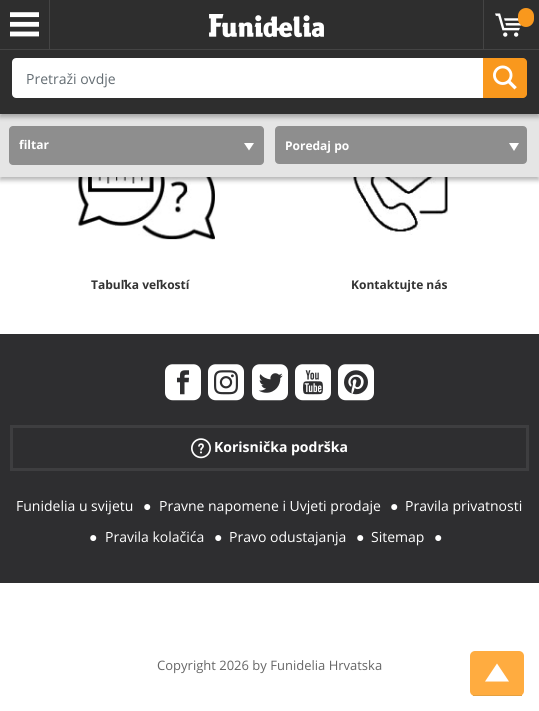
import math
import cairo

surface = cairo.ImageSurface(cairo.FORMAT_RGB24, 539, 711)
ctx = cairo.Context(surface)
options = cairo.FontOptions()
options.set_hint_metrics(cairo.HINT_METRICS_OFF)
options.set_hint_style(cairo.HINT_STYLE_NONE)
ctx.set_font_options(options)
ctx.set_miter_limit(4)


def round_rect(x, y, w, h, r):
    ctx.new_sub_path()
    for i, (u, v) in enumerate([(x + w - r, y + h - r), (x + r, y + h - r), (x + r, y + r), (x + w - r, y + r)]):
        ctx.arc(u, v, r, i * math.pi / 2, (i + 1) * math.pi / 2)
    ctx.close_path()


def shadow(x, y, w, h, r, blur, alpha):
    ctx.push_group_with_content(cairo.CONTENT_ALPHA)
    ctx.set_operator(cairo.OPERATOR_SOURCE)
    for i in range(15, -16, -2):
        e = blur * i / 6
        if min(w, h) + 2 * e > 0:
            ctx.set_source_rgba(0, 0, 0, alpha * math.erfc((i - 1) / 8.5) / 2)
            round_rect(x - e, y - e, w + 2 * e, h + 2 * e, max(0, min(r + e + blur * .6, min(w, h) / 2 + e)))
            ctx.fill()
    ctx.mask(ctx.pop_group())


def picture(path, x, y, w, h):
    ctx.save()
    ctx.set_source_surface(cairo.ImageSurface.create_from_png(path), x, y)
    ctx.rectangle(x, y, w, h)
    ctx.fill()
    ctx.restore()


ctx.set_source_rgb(1, 1, 1)
ctx.paint()
picture("img5.png", 77, 177, 138, 63)
picture("img6.png", 353, 177, 95, 58)
ctx.set_source_rgb(0, 0, 0)
shadow(0, 117, 539, 63, 0, 2.5, 0.3)
ctx.set_source_rgb(0.898, 0.898, 0.898)
ctx.rectangle(0, 114, 539, 63)
ctx.fill()
ctx.set_source_rgb(0, 0, 0)
shadow(0, 3, 539, 114, 0, 2.5, 0.3)
ctx.set_source_rgb(0.18, 0.18, 0.18)
ctx.rectangle(0, 0, 539, 114)
ctx.fill()
ctx.set_source_rgb(0.267, 0.267, 0.267)
ctx.rectangle(49, 0, 1, 49)
ctx.fill()
picture("img1.png", 10, 12, 29, 25)
picture("img2.png", 209, 14, 115, 24)
ctx.rectangle(483, 0, 1, 49)
ctx.fill()
picture("img3.png", 495, 13, 27, 24)
ctx.set_source_rgb(0.973, 0.596, 0.114)
round_rect(518, 8, 16, 19, 8)
ctx.fill()
ctx.set_source_rgb(0.267, 0.267, 0.267)
ctx.rectangle(0, 49, 539, 1)
ctx.fill()
ctx.set_source_rgb(1, 1, 1)
ctx.new_path()
ctx.move_to(16, 59)
ctx.line_to(482, 59)
ctx.line_to(482, 97)
ctx.line_to(16, 97)
ctx.curve_to(14.5, 97, 13, 95.5, 13, 94)
ctx.line_to(13, 62)
ctx.curve_to(13, 60.5, 14.5, 59, 16, 59)
ctx.close_path()
ctx.fill_preserve()
ctx.stroke()
ctx.select_font_face("Open Sans")
ctx.set_font_size(14)
ctx.set_source_rgb(0.388, 0.424, 0.447)
ctx.move_to(26, 84)
ctx.show_text("Pretraži ovdje")
ctx.set_source_rgb(0.973, 0.596, 0.114)
ctx.new_path()
ctx.move_to(483, 58)
ctx.line_to(523, 58)
ctx.curve_to(525, 58, 527, 60, 527, 62)
ctx.line_to(527, 94)
ctx.curve_to(527, 96, 525, 98, 523, 98)
ctx.line_to(483, 98)
ctx.close_path()
ctx.fill()
picture("img4.png", 493, 65, 24, 25)
ctx.set_source_rgb(0.557, 0.557, 0.557)
round_rect(9, 126, 255, 39, 4)
ctx.fill()
ctx.select_font_face("Open Sans", cairo.FONT_SLANT_NORMAL, cairo.FONT_WEIGHT_BOLD)
ctx.set_font_size(12)
ctx.set_source_rgb(1, 1, 1)
ctx.move_to(19, 149)
ctx.show_text("filtar")
ctx.new_path()
ctx.move_to(249, 150.5)
ctx.line_to(244, 143)
ctx.line_to(254, 143)
ctx.close_path()
ctx.fill()
ctx.set_source_rgb(0.557, 0.557, 0.557)
round_rect(276, 127, 250, 36, 3)
ctx.fill_preserve()
ctx.stroke()
ctx.set_source_rgb(1, 1, 1)
ctx.move_to(285, 150)
ctx.show_text("Poredaj po")
ctx.new_path()
ctx.move_to(509, 143)
ctx.line_to(519, 143)
ctx.line_to(514, 151)
ctx.close_path()
ctx.fill()
ctx.set_source_rgb(0.2, 0.2, 0.2)
ctx.move_to(91, 289)
ctx.show_text("Tabuľka veľkostí")
ctx.move_to(351, 289)
ctx.show_text("Kontaktujte nás")
ctx.set_source_rgb(0.18, 0.18, 0.188)
ctx.rectangle(0, 334, 539, 249)
ctx.fill()
picture("img7.png", 165, 364, 36, 37)
picture("img8.png", 208, 364, 36, 37)
picture("img9.png", 252, 364, 36, 37)
picture("img10.png", 295, 364, 36, 37)
picture("img11.png", 338, 364, 36, 37)
ctx.rectangle(11.5, 426.5, 516, 43)
ctx.set_source_rgb(0.243, 0.243, 0.251)
ctx.set_line_width(3)
ctx.stroke()
picture("img12.png", 191, 438, 20, 21)
ctx.set_font_size(14)
ctx.set_source_rgb(1, 1, 1)
ctx.move_to(214, 452)
ctx.show_text("Korisnička podrška")
ctx.select_font_face("Open Sans")
ctx.move_to(16, 511)
ctx.show_text("Funidelia u svijetu")
ctx.select_font_face("Liberation Sans", cairo.FONT_SLANT_NORMAL, cairo.FONT_WEIGHT_BOLD)
ctx.move_to(143, 511)
ctx.show_text("●")
ctx.select_font_face("Open Sans")
ctx.move_to(159, 511)
ctx.show_text("Pravne napomene i Uvjeti prodaje")
ctx.select_font_face("Liberation Sans", cairo.FONT_SLANT_NORMAL, cairo.FONT_WEIGHT_BOLD)
ctx.move_to(390, 511)
ctx.show_text("●")
ctx.select_font_face("Open Sans")
ctx.move_to(405, 511)
ctx.show_text("Pravila privatnosti")
ctx.select_font_face("Liberation Sans", cairo.FONT_SLANT_NORMAL, cairo.FONT_WEIGHT_BOLD)
ctx.move_to(89, 542)
ctx.show_text("●")
ctx.select_font_face("Open Sans")
ctx.move_to(105, 542)
ctx.show_text("Pravila kolačića")
ctx.select_font_face("Liberation Sans", cairo.FONT_SLANT_NORMAL, cairo.FONT_WEIGHT_BOLD)
ctx.move_to(214, 542)
ctx.show_text("●")
ctx.select_font_face("Open Sans")
ctx.move_to(229, 542)
ctx.show_text("Pravo odustajanja")
ctx.select_font_face("Liberation Sans", cairo.FONT_SLANT_NORMAL, cairo.FONT_WEIGHT_BOLD)
ctx.move_to(356, 542)
ctx.show_text("●")
ctx.select_font_face("Open Sans")
ctx.move_to(371, 542)
ctx.show_text("Sitemap")
ctx.select_font_face("Liberation Sans", cairo.FONT_SLANT_NORMAL, cairo.FONT_WEIGHT_BOLD)
ctx.move_to(434, 542)
ctx.show_text("●")
ctx.select_font_face("Open Sans")
ctx.set_font_size(13)
ctx.set_source_rgb(0.4, 0.4, 0.4)
ctx.move_to(157, 670)
ctx.show_text("Copyright 2026 by Funidelia Hrvatska")
ctx.set_source_rgb(1, 0.675, 0.251)
round_rect(470, 651, 54, 45, 5)
ctx.fill()
ctx.set_source_rgb(0.894, 0.627, 0.251)
ctx.rectangle(473, 695, 49, 1)
ctx.fill()
ctx.set_source_rgb(1, 1, 1)
ctx.new_path()
ctx.move_to(497, 663.5)
ctx.line_to(509, 681.5)
ctx.line_to(485, 681.5)
ctx.close_path()
ctx.fill()
surface.write_to_png("page.png")
